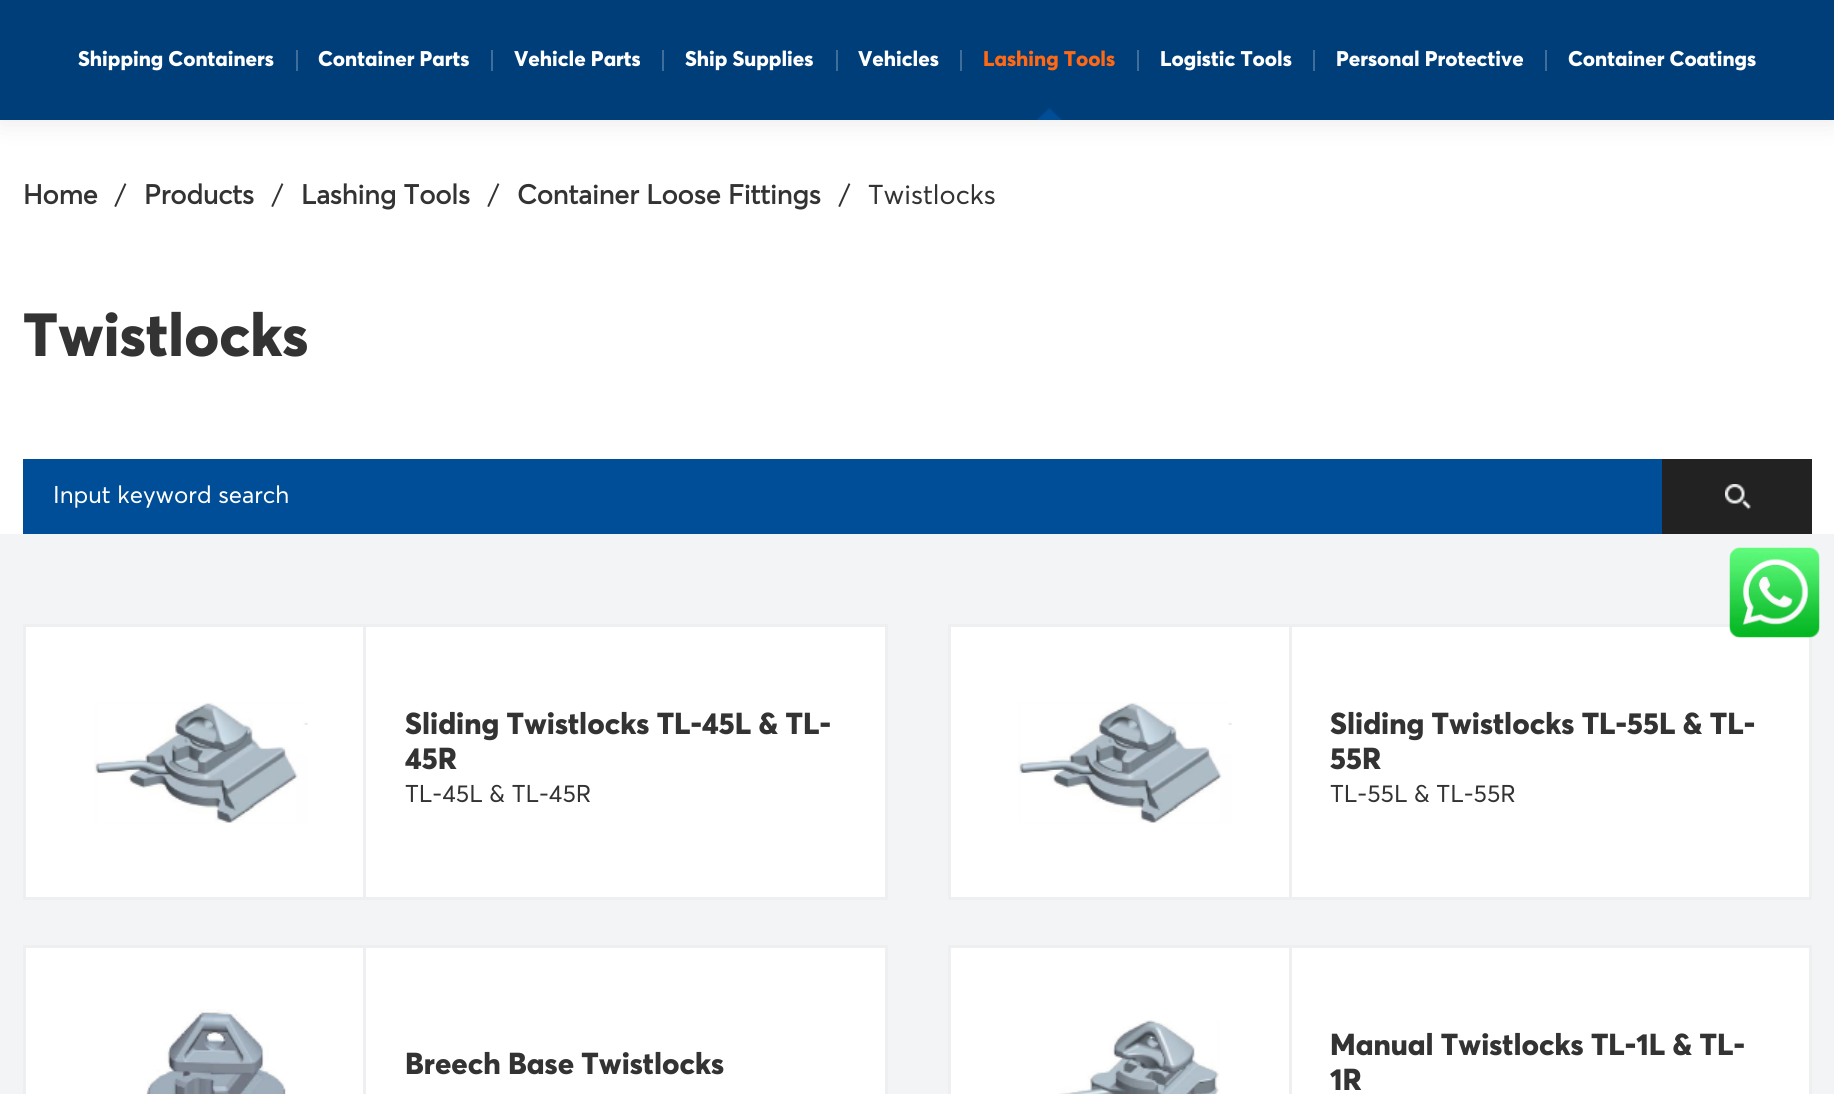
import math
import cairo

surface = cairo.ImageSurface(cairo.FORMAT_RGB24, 1834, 1094)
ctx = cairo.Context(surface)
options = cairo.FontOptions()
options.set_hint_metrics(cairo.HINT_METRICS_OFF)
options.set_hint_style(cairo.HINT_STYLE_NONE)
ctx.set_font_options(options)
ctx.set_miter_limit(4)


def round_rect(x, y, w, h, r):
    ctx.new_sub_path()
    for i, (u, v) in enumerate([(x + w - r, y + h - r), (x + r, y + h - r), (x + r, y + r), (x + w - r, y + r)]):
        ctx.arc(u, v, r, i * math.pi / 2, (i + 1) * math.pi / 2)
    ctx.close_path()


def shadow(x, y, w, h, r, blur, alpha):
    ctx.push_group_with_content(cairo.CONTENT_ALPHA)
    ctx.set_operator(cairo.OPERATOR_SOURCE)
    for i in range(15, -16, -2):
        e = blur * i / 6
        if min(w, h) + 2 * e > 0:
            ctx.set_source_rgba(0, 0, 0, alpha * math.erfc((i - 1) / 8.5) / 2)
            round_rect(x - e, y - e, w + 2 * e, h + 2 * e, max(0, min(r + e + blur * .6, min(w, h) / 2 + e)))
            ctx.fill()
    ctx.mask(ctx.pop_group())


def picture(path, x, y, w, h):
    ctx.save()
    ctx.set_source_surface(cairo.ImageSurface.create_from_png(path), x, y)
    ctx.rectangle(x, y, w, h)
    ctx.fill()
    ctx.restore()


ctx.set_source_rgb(1, 1, 1)
ctx.paint()
ctx.set_source_rgb(0, 0, 0)
shadow(0, 0, 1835, 120, 0, 13.5, 0.1)
ctx.set_source_rgb(0, 0.243, 0.475)
ctx.rectangle(0, 0, 1834, 120)
ctx.fill()
ctx.select_font_face("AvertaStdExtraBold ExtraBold")
ctx.set_font_size(21)
ctx.set_source_rgb(1, 1, 1)
ctx.move_to(78, 66)
ctx.show_text("Shipping Containers")
ctx.set_source_rgb(0.251, 0.431, 0.608)
ctx.rectangle(296, 50, 2, 21)
ctx.fill()
ctx.set_source_rgb(1, 1, 1)
ctx.move_to(318, 66)
ctx.show_text("Container Parts")
ctx.set_source_rgb(0.251, 0.431, 0.608)
ctx.rectangle(491, 50, 2, 21)
ctx.fill()
ctx.set_source_rgb(1, 1, 1)
ctx.move_to(514, 66)
ctx.show_text("Vehicle Parts")
ctx.set_source_rgb(0.251, 0.431, 0.608)
ctx.rectangle(662, 50, 2, 21)
ctx.fill()
ctx.set_source_rgb(1, 1, 1)
ctx.move_to(685, 66)
ctx.show_text("Ship Supplies")
ctx.set_source_rgb(0.251, 0.431, 0.608)
ctx.rectangle(836, 50, 2, 21)
ctx.fill()
ctx.set_source_rgb(1, 1, 1)
ctx.move_to(858, 66)
ctx.show_text("Vehicles")
ctx.set_source_rgb(0.251, 0.431, 0.608)
ctx.rectangle(960, 50, 2, 21)
ctx.fill()
ctx.set_source_rgb(1, 0.408, 0.082)
ctx.move_to(983, 66)
ctx.show_text("Lashing Tools")
picture("img1.png", 1036, 108, 26, 12)
ctx.set_source_rgb(0.251, 0.431, 0.608)
ctx.rectangle(1137, 50, 2, 21)
ctx.fill()
ctx.set_source_rgb(1, 1, 1)
ctx.move_to(1160, 66)
ctx.show_text("Logistic Tools")
ctx.set_source_rgb(0.251, 0.431, 0.608)
ctx.rectangle(1313, 50, 2, 21)
ctx.fill()
ctx.set_source_rgb(1, 1, 1)
ctx.move_to(1336, 66)
ctx.show_text("Personal Protective")
ctx.set_source_rgb(0.251, 0.431, 0.608)
ctx.rectangle(1545, 50, 2, 21)
ctx.fill()
ctx.set_source_rgb(1, 1, 1)
ctx.move_to(1568, 66)
ctx.show_text("Container Coatings")
ctx.select_font_face("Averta", cairo.FONT_SLANT_NORMAL, cairo.FONT_WEIGHT_BOLD)
ctx.set_font_size(27)
ctx.set_source_rgb(0.2, 0.2, 0.2)
ctx.move_to(23, 204)
ctx.show_text("Home")
ctx.select_font_face("Averta")
ctx.move_to(115, 204)
ctx.show_text("/")
ctx.select_font_face("Averta", cairo.FONT_SLANT_NORMAL, cairo.FONT_WEIGHT_BOLD)
ctx.move_to(144, 204)
ctx.show_text("Products")
ctx.select_font_face("Averta")
ctx.move_to(272, 204)
ctx.show_text("/")
ctx.select_font_face("Averta", cairo.FONT_SLANT_NORMAL, cairo.FONT_WEIGHT_BOLD)
ctx.move_to(301, 204)
ctx.show_text("Lashing Tools")
ctx.select_font_face("Averta")
ctx.move_to(488, 204)
ctx.show_text("/")
ctx.select_font_face("Averta", cairo.FONT_SLANT_NORMAL, cairo.FONT_WEIGHT_BOLD)
ctx.move_to(517, 204)
ctx.show_text("Container Loose Fittings")
ctx.select_font_face("Averta")
ctx.move_to(839, 204)
ctx.show_text("/")
ctx.move_to(868, 204)
ctx.show_text("Twistlocks")
ctx.select_font_face("AvertaStdExtraBold ExtraBold")
ctx.set_font_size(60)
ctx.move_to(23, 356)
ctx.show_text("Twistlocks")
ctx.set_source_rgb(0, 0.306, 0.592)
ctx.rectangle(23, 459, 1639, 75)
ctx.fill()
ctx.select_font_face("Averta")
ctx.set_font_size(24)
ctx.set_source_rgb(1, 1, 1)
ctx.move_to(53, 503)
ctx.show_text("Input keyword search")
ctx.set_source_rgb(0.133, 0.133, 0.133)
ctx.rectangle(1662, 459, 150, 75)
ctx.fill()
picture("img2.png", 1725, 484, 26, 26)
ctx.set_source_rgb(0.949, 0.957, 0.961)
ctx.rectangle(0, 534, 1834, 560)
ctx.fill()
ctx.set_source_rgb(1, 1, 1)
ctx.rectangle(24.5, 625.5, 862, 273)
ctx.fill_preserve()
ctx.set_source_rgb(0.929, 0.937, 0.941)
ctx.set_line_width(3)
ctx.stroke()
picture("img3.png", 94, 702, 214, 121)
ctx.rectangle(363, 627, 3, 270)
ctx.fill()
ctx.select_font_face("AvertaStdExtraBold ExtraBold")
ctx.set_font_size(30)
ctx.set_source_rgb(0.2, 0.2, 0.2)
ctx.move_to(405, 734)
ctx.show_text("Sliding Twistlocks TL-45L & TL-")
ctx.move_to(405, 769)
ctx.show_text("45R")
ctx.select_font_face("Averta")
ctx.set_font_size(24)
ctx.move_to(405, 802)
ctx.show_text("TL-45L & TL-45R")
ctx.set_source_rgb(1, 1, 1)
ctx.rectangle(949.5, 625.5, 861, 273)
ctx.fill_preserve()
ctx.set_source_rgb(0.929, 0.937, 0.941)
ctx.stroke()
picture("img3.png", 1018, 702, 214, 121)
ctx.rectangle(1289, 627, 3, 270)
ctx.fill()
ctx.select_font_face("AvertaStdExtraBold ExtraBold")
ctx.set_font_size(30)
ctx.set_source_rgb(0.2, 0.2, 0.2)
ctx.move_to(1330, 734)
ctx.show_text("Sliding Twistlocks TL-55L & TL-")
ctx.move_to(1330, 769)
ctx.show_text("55R")
ctx.select_font_face("Averta")
ctx.set_font_size(24)
ctx.move_to(1330, 802)
ctx.show_text("TL-55L & TL-55R")
ctx.set_source_rgb(1, 1, 1)
ctx.rectangle(24.5, 946.5, 862, 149)
ctx.fill_preserve()
ctx.set_source_rgb(0.929, 0.937, 0.941)
ctx.stroke()
picture("img4.png", 146, 1009, 140, 85)
ctx.rectangle(363, 948, 3, 146)
ctx.fill()
ctx.select_font_face("AvertaStdExtraBold ExtraBold")
ctx.set_font_size(30)
ctx.set_source_rgb(0.2, 0.2, 0.2)
ctx.move_to(405, 1074)
ctx.show_text("Breech Base Twistlocks")
ctx.set_source_rgb(1, 1, 1)
ctx.rectangle(949.5, 946.5, 861, 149)
ctx.fill_preserve()
ctx.set_source_rgb(0.929, 0.937, 0.941)
ctx.stroke()
picture("img5.png", 1058, 1020, 162, 74)
ctx.rectangle(1289, 948, 3, 146)
ctx.fill()
ctx.set_source_rgb(0.2, 0.2, 0.2)
ctx.move_to(1330, 1055)
ctx.show_text("Manual Twistlocks TL-1L & TL-")
ctx.move_to(1330, 1090)
ctx.show_text("1R")
picture("img6.png", 1729, 547, 91, 91)
surface.write_to_png("page.png")
